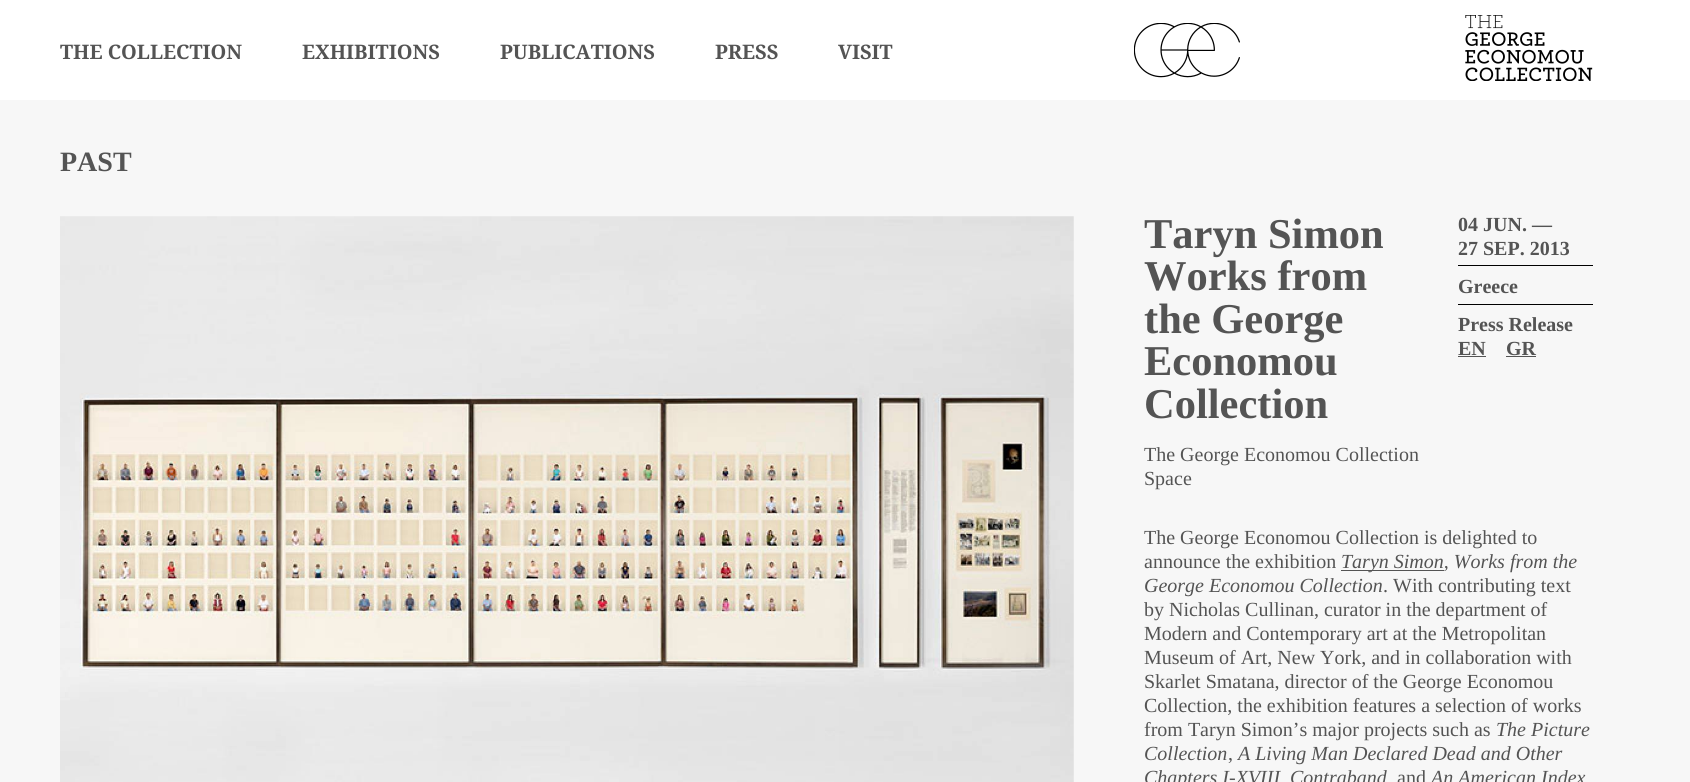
import math
import cairo

surface = cairo.ImageSurface(cairo.FORMAT_RGB24, 1690, 782)
ctx = cairo.Context(surface)
options = cairo.FontOptions()
options.set_hint_metrics(cairo.HINT_METRICS_OFF)
options.set_hint_style(cairo.HINT_STYLE_NONE)
ctx.set_font_options(options)
ctx.set_miter_limit(4)


def picture(path, x, y, w, h):
    ctx.save()
    ctx.set_source_surface(cairo.ImageSurface.create_from_png(path), x, y)
    ctx.rectangle(x, y, w, h)
    ctx.fill()
    ctx.restore()


ctx.set_source_rgb(0.965, 0.965, 0.965)
ctx.paint()
ctx.set_source_rgb(1, 1, 1)
ctx.rectangle(0, 0, 1690, 100)
ctx.fill()
ctx.select_font_face("Noto Serif", cairo.FONT_SLANT_NORMAL, cairo.FONT_WEIGHT_BOLD)
ctx.set_font_size(20)
ctx.set_source_rgb(0.329, 0.329, 0.329)
ctx.move_to(60, 59)
ctx.show_text("THE COLLECTION")
ctx.move_to(302, 59)
ctx.show_text("EXHIBITIONS")
ctx.move_to(500, 59)
ctx.show_text("PUBLICATIONS")
ctx.move_to(715, 59)
ctx.show_text("PRESS")
ctx.move_to(838, 59)
ctx.show_text("VISIT")
picture("img1.png", 1134, 23, 106, 55)
picture("img2.png", 1465, 15, 128, 66)
ctx.select_font_face("Liberation Serif", cairo.FONT_SLANT_NORMAL, cairo.FONT_WEIGHT_BOLD)
ctx.set_font_size(28)
ctx.move_to(60, 171)
ctx.show_text("PAST")
picture("img3.png", 60, 216, 1014, 566)
ctx.set_font_size(42.5)
ctx.move_to(1144, 248)
ctx.show_text("Taryn Simon")
ctx.move_to(1144, 290)
ctx.show_text("Works from")
ctx.move_to(1144, 333)
ctx.show_text("the George")
ctx.move_to(1144, 375)
ctx.show_text("Economou")
ctx.move_to(1144, 418)
ctx.show_text("Collection")
ctx.select_font_face("Liberation Serif")
ctx.set_font_size(20)
ctx.move_to(1144, 461)
ctx.show_text("The George Economou Collection")
ctx.move_to(1144, 485)
ctx.show_text("Space")
ctx.set_source_rgb(0, 0, 0)
ctx.rectangle(1458, 265, 135, 1)
ctx.fill()
ctx.select_font_face("Liberation Serif", cairo.FONT_SLANT_NORMAL, cairo.FONT_WEIGHT_BOLD)
ctx.set_source_rgb(0.329, 0.329, 0.329)
ctx.move_to(1458, 231)
ctx.show_text("04 JUN. —")
ctx.move_to(1458, 255)
ctx.show_text("27 SEP. 2013")
ctx.set_source_rgb(0, 0, 0)
ctx.rectangle(1458, 304, 135, 1)
ctx.fill()
ctx.set_source_rgb(0.329, 0.329, 0.329)
ctx.move_to(1458, 293)
ctx.show_text("Greece")
ctx.move_to(1458, 331)
ctx.show_text("Press Release")
ctx.move_to(1458, 355)
ctx.show_text("EN")
ctx.rectangle(1458, 356, 28, 1)
ctx.fill()
ctx.move_to(1506, 355)
ctx.show_text("GR")
ctx.rectangle(1506, 356, 30, 1)
ctx.fill()
ctx.select_font_face("Liberation Serif")
ctx.move_to(1144, 544)
ctx.show_text("The George Economou Collection is delighted to")
ctx.move_to(1144, 568)
ctx.show_text("announce the exhibition")
ctx.rectangle(1341, 570, 103, 1)
ctx.fill()
ctx.select_font_face("Liberation Serif", cairo.FONT_SLANT_ITALIC)
ctx.move_to(1341, 568)
ctx.show_text("Taryn Simon, Works from the")
ctx.move_to(1144, 592)
ctx.show_text("George Economou Collection")
ctx.select_font_face("Liberation Serif")
ctx.move_to(1383, 592)
ctx.show_text(". With contributing text")
ctx.move_to(1144, 616)
ctx.show_text("by Nicholas Cullinan, curator in the department of")
ctx.move_to(1144, 640)
ctx.show_text("Modern and Contemporary art at the Metropolitan")
ctx.move_to(1144, 664)
ctx.show_text("Museum of Art, New York, and in collaboration with")
ctx.move_to(1144, 688)
ctx.show_text("Skarlet Smatana, director of the George Economou")
ctx.move_to(1144, 712)
ctx.show_text("Collection, the exhibition features a selection of works")
ctx.move_to(1144, 736)
ctx.show_text("from Taryn Simon’s major projects such as")
ctx.select_font_face("Liberation Serif", cairo.FONT_SLANT_ITALIC)
ctx.move_to(1496, 736)
ctx.show_text("The Picture")
ctx.move_to(1144, 760)
ctx.show_text("Collection")
ctx.select_font_face("Liberation Serif")
ctx.move_to(1228, 760)
ctx.show_text(",")
ctx.select_font_face("Liberation Serif", cairo.FONT_SLANT_ITALIC)
ctx.move_to(1238, 760)
ctx.show_text("A Living Man Declared Dead and Other")
ctx.move_to(1144, 784)
ctx.show_text("Chapters I-XVIII")
ctx.move_to(1290, 784)
ctx.show_text("Contraband")
ctx.select_font_face("Liberation Serif")
ctx.move_to(1397, 784)
ctx.show_text("and")
ctx.select_font_face("Liberation Serif", cairo.FONT_SLANT_ITALIC)
ctx.move_to(1431, 784)
ctx.show_text("An American Index")
surface.write_to_png("page.png")
